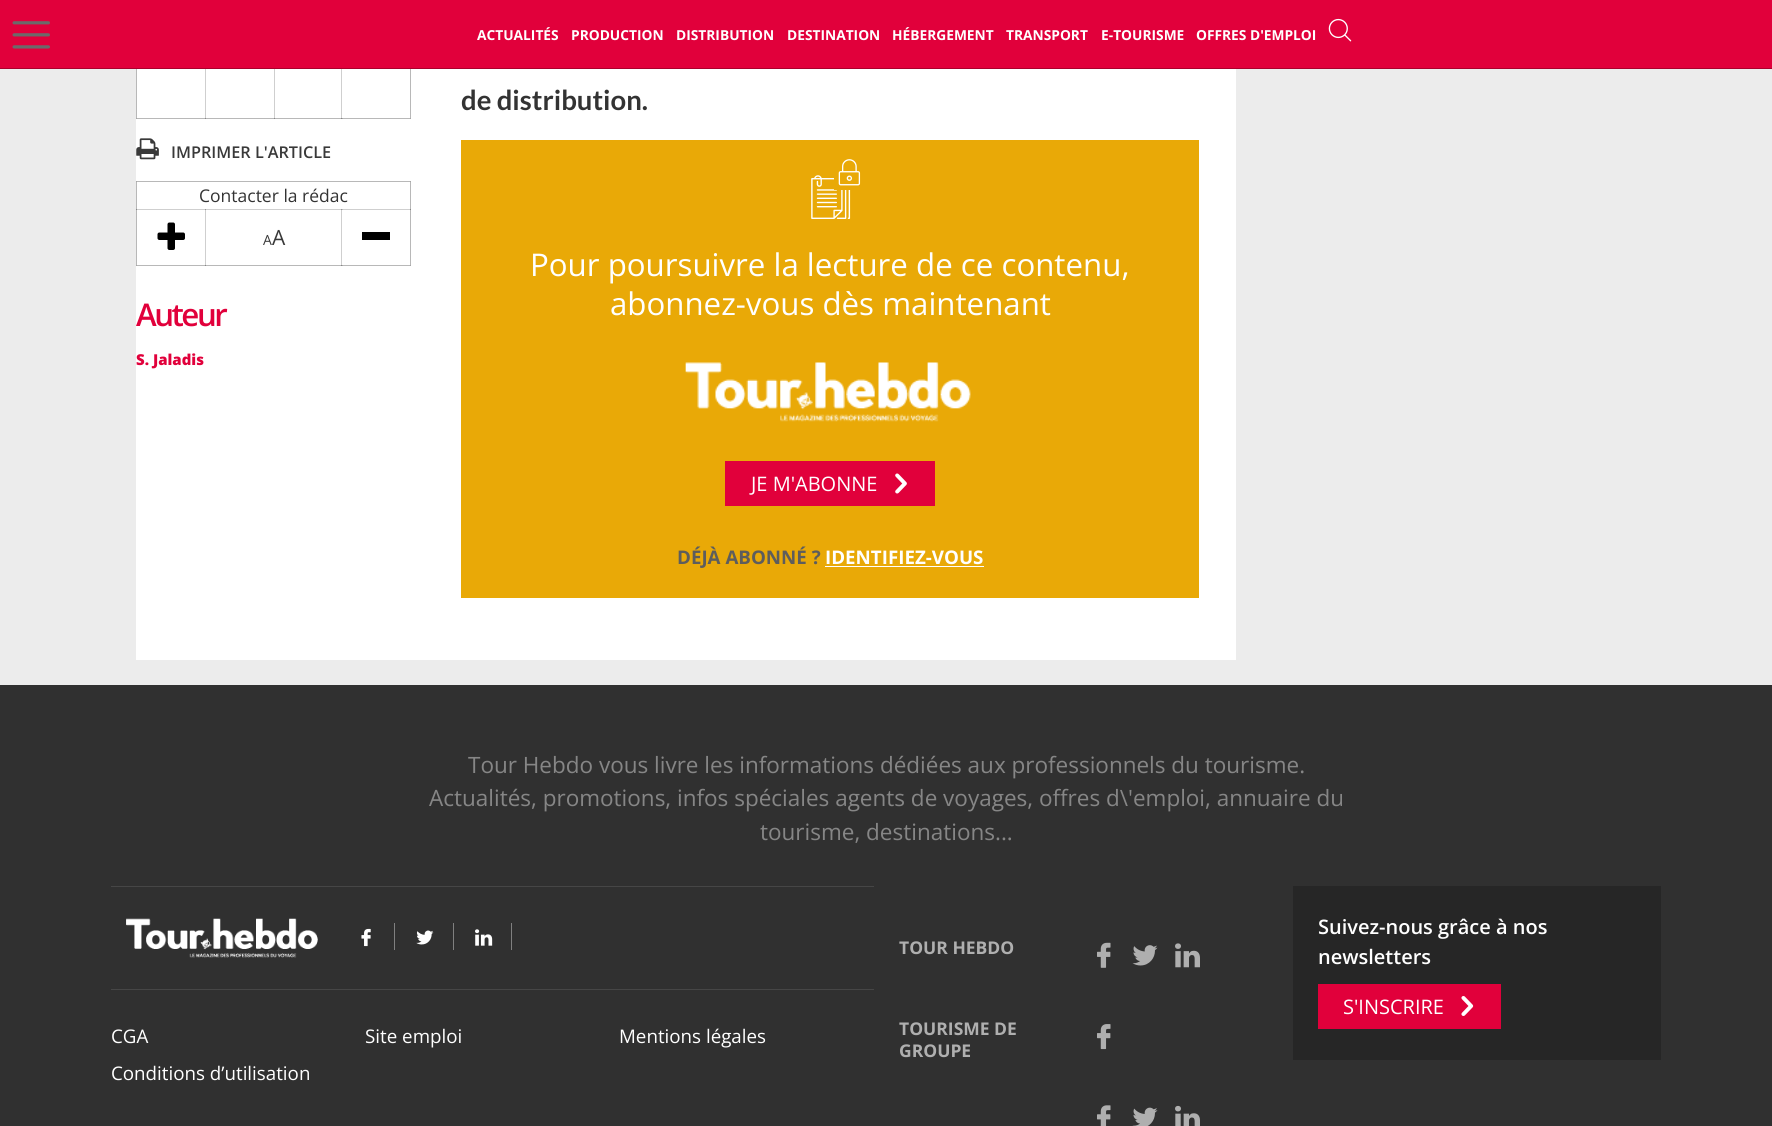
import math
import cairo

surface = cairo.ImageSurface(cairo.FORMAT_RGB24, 1772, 1126)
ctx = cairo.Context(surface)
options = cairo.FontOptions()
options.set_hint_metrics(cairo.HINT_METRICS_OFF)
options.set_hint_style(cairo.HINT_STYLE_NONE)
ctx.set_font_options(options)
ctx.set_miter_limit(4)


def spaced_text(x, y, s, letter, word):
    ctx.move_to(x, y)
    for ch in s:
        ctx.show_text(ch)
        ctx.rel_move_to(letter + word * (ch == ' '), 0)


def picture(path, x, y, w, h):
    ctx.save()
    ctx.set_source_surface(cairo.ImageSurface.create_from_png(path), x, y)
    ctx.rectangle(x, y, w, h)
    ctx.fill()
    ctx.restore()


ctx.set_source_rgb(0.922, 0.922, 0.922)
ctx.paint()
ctx.set_source_rgb(1, 1, 1)
ctx.rectangle(136, 69, 1100, 591)
ctx.fill()
ctx.set_source_rgb(0.812, 0.812, 0.812)
ctx.rectangle(205, 61, 1, 58)
ctx.fill()
ctx.rectangle(274, 61, 1, 58)
ctx.fill()
ctx.rectangle(341, 61, 1, 58)
ctx.fill()
ctx.set_source_rgb(0.722, 0.722, 0.722)
ctx.rectangle(410, 61, 1, 58)
ctx.fill()
ctx.rectangle(136, 118, 275, 1)
ctx.fill()
ctx.rectangle(136, 61, 1, 58)
ctx.fill()
ctx.set_source_rgb(0.882, 0, 0.231)
ctx.rectangle(0, 0, 1772, 68)
ctx.fill()
ctx.set_source_rgb(0.663, 0, 0.173)
ctx.rectangle(0, 68, 1772, 1)
ctx.fill()
picture("img1.png", 12, 21, 38, 28)
ctx.select_font_face("Open Sans", cairo.FONT_SLANT_NORMAL, cairo.FONT_WEIGHT_BOLD)
ctx.set_font_size(13.75)
ctx.set_source_rgb(1, 1, 1)
ctx.move_to(477, 40)
ctx.show_text("ACTUALITÉS")
ctx.move_to(571, 40)
ctx.show_text("PRODUCTION")
ctx.move_to(676, 40)
ctx.show_text("DISTRIBUTION")
ctx.move_to(787, 40)
ctx.show_text("DESTINATION")
ctx.move_to(892, 40)
ctx.show_text("HÉBERGEMENT")
ctx.move_to(1006, 40)
ctx.show_text("TRANSPORT")
ctx.move_to(1101, 40)
ctx.show_text("E-TOURISME")
ctx.move_to(1196, 40)
ctx.show_text("OFFRES D'EMPLOI")
picture("img2.png", 1328, 18, 24, 24)
ctx.set_source_rgb(0.812, 0.812, 0.812)
ctx.rectangle(136, 209, 70, 1)
ctx.fill()
ctx.rectangle(205, 209, 1, 57)
ctx.fill()
ctx.rectangle(205, 209, 138, 1)
ctx.fill()
ctx.set_source_rgb(0.588, 0.588, 0.588)
ctx.rectangle(205, 209, 1, 1)
ctx.fill()
ctx.set_source_rgb(0.812, 0.812, 0.812)
ctx.rectangle(341, 209, 1, 57)
ctx.fill()
ctx.rectangle(341, 209, 70, 1)
ctx.fill()
ctx.set_source_rgb(0.729, 0.729, 0.729)
ctx.rectangle(341, 209, 2, 1)
ctx.fill()
ctx.set_source_rgb(0.588, 0.588, 0.588)
ctx.rectangle(341, 209, 1, 1)
ctx.fill()
ctx.set_source_rgb(0.525, 0.525, 0.525)
ctx.rectangle(205, 118, 1, 1)
ctx.fill()
ctx.rectangle(274, 118, 1, 1)
ctx.fill()
ctx.set_source_rgb(0.651, 0.651, 0.651)
ctx.rectangle(341, 118, 2, 1)
ctx.fill()
ctx.set_source_rgb(0.525, 0.525, 0.525)
ctx.rectangle(341, 118, 1, 1)
ctx.fill()
ctx.set_source_rgb(0.651, 0.651, 0.651)
ctx.rectangle(410, 118, 1, 1)
ctx.fill()
ctx.rectangle(136, 118, 1, 1)
ctx.fill()
picture("img3.png", 136, 138, 23, 22)
ctx.select_font_face("Open Sans SemiBold")
ctx.set_font_size(16.25)
ctx.set_source_rgb(0.224, 0.224, 0.224)
ctx.move_to(171, 158)
ctx.show_text("IMPRIMER L'ARTICLE")
ctx.set_source_rgb(0.722, 0.722, 0.722)
ctx.rectangle(410, 181, 1, 85)
ctx.fill()
ctx.set_source_rgb(0.525, 0.525, 0.525)
ctx.rectangle(410, 209, 1, 1)
ctx.fill()
ctx.set_source_rgb(0.722, 0.722, 0.722)
ctx.rectangle(136, 265, 275, 1)
ctx.fill()
ctx.set_source_rgb(0.525, 0.525, 0.525)
ctx.rectangle(205, 265, 1, 1)
ctx.fill()
ctx.set_source_rgb(0.651, 0.651, 0.651)
ctx.rectangle(341, 265, 2, 1)
ctx.fill()
ctx.set_source_rgb(0.525, 0.525, 0.525)
ctx.rectangle(341, 265, 1, 1)
ctx.fill()
ctx.set_source_rgb(0.651, 0.651, 0.651)
ctx.rectangle(410, 265, 1, 1)
ctx.fill()
ctx.set_source_rgb(0.722, 0.722, 0.722)
ctx.rectangle(136, 181, 1, 85)
ctx.fill()
ctx.set_source_rgb(0.651, 0.651, 0.651)
ctx.rectangle(136, 265, 1, 1)
ctx.fill()
ctx.set_source_rgb(0.525, 0.525, 0.525)
ctx.rectangle(136, 209, 1, 1)
ctx.fill()
ctx.set_source_rgb(0.722, 0.722, 0.722)
ctx.rectangle(136, 181, 275, 1)
ctx.fill()
ctx.set_source_rgb(0.651, 0.651, 0.651)
ctx.rectangle(136, 181, 1, 1)
ctx.fill()
ctx.rectangle(410, 181, 1, 1)
ctx.fill()
ctx.select_font_face("Open Sans")
ctx.set_font_size(17.5)
ctx.set_source_rgb(0.2, 0.2, 0.2)
ctx.move_to(199, 202)
ctx.show_text("Contacter la rédac")
picture("img4.png", 157, 222, 28, 28)
ctx.set_font_size(14)
ctx.set_source_rgb(0.224, 0.224, 0.224)
ctx.move_to(263, 245)
ctx.show_text("A")
ctx.set_font_size(21)
ctx.move_to(272, 245)
ctx.show_text("A")
ctx.set_source_rgb(0, 0, 0)
ctx.rectangle(362, 232, 28, 8)
ctx.fill()
ctx.select_font_face("Open Sans SemiBold")
ctx.set_font_size(31.25)
ctx.set_source_rgb(0.882, 0, 0.231)
spaced_text(136, 326, "Auteur", -2.5, 0)
ctx.select_font_face("Open Sans ExtraBold")
ctx.set_font_size(15)
ctx.move_to(136, 365)
ctx.show_text("S. Jaladis")
ctx.select_font_face("Lato", cairo.FONT_SLANT_NORMAL, cairo.FONT_WEIGHT_BOLD)
ctx.set_font_size(27.5)
ctx.set_source_rgb(0.2, 0.2, 0.2)
ctx.move_to(461, 110)
ctx.show_text("de distribution.")
ctx.set_source_rgb(0.914, 0.663, 0.031)
ctx.rectangle(461, 140, 738, 458)
ctx.fill()
picture("img6.png", 811, 175, 40, 44)
ctx.rectangle(834, 178, 17, 12)
ctx.fill()
picture("img5.png", 838, 159, 23, 27)
ctx.select_font_face("Open Sans")
ctx.set_font_size(31.25)
ctx.set_source_rgb(1, 1, 1)
ctx.move_to(530, 276)
ctx.show_text("Pour poursuivre la lecture de ce contenu,")
ctx.move_to(610, 315)
ctx.show_text("abonnez-vous dès maintenant")
picture("img7.png", 685, 362, 286, 60)
ctx.set_source_rgb(0.882, 0, 0.231)
ctx.rectangle(725, 461, 210, 45)
ctx.fill()
ctx.set_font_size(20)
ctx.set_source_rgb(1, 1, 1)
ctx.move_to(751, 491)
ctx.show_text("JE M'ABONNE")
picture("img8.png", 895, 473, 12, 21)
ctx.select_font_face("Open Sans", cairo.FONT_SLANT_NORMAL, cairo.FONT_WEIGHT_BOLD)
ctx.set_font_size(18.75)
ctx.set_source_rgb(0.365, 0.365, 0.365)
ctx.move_to(677, 564)
ctx.show_text("DÉJÀ ABONNÉ ?")
ctx.set_source_rgb(1, 1, 1)
ctx.move_to(825, 564)
ctx.show_text("IDENTIFIEZ-VOUS")
ctx.rectangle(825, 566, 159, 1)
ctx.fill()
ctx.set_source_rgb(0.188, 0.188, 0.188)
ctx.rectangle(0, 685, 1772, 441)
ctx.fill()
ctx.select_font_face("Open Sans")
ctx.set_font_size(22.5)
ctx.set_source_rgb(0.525, 0.525, 0.525)
ctx.move_to(468, 773)
ctx.show_text("Tour Hebdo vous livre les informations dédiées aux professionnels du tourisme.")
ctx.move_to(429, 806)
ctx.show_text("Actualités, promotions, infos spéciales agents de voyages, offres d\\'emploi, annuaire du")
ctx.move_to(760, 840)
ctx.show_text("tourisme, destinations...")
ctx.set_source_rgb(0.275, 0.275, 0.275)
ctx.rectangle(111, 886, 763, 1)
ctx.fill()
ctx.rectangle(111, 989, 763, 1)
ctx.fill()
picture("img9.png", 126, 918, 192, 40)
ctx.set_source_rgb(0.502, 0.502, 0.502)
ctx.rectangle(394, 923, 1, 27)
ctx.fill()
picture("img10.png", 361, 928, 10, 19)
ctx.rectangle(453, 923, 1, 27)
ctx.fill()
picture("img11.png", 416, 930, 18, 15)
ctx.rectangle(511, 923, 1, 27)
ctx.fill()
picture("img12.png", 475, 929, 18, 17)
ctx.set_font_size(18.75)
ctx.set_source_rgb(1, 1, 1)
ctx.move_to(111, 1043)
ctx.show_text("CGA")
ctx.move_to(111, 1080)
ctx.show_text("Conditions d’utilisation")
ctx.move_to(365, 1043)
ctx.show_text("Site emploi")
ctx.move_to(619, 1043)
ctx.show_text("Mentions légales")
ctx.select_font_face("Open Sans", cairo.FONT_SLANT_NORMAL, cairo.FONT_WEIGHT_BOLD)
ctx.set_font_size(17.5)
ctx.set_source_rgb(0.686, 0.686, 0.686)
ctx.move_to(899, 954)
ctx.show_text("TOUR HEBDO")
picture("img13.png", 1097, 942, 14, 26)
picture("img14.png", 1132, 945, 26, 21)
picture("img15.png", 1175, 943, 25, 25)
ctx.move_to(899, 1035)
ctx.show_text("TOURISME DE")
ctx.move_to(899, 1057)
ctx.show_text("GROUPE")
picture("img16.png", 1097, 1024, 14, 26)
picture("img17.png", 1097, 1105, 14, 21)
picture("img18.png", 1132, 1107, 26, 19)
picture("img19.png", 1175, 1105, 25, 21)
ctx.set_source_rgb(0.149, 0.149, 0.149)
ctx.rectangle(1293, 886, 368, 174)
ctx.fill()
ctx.select_font_face("Open Sans SemiBold")
ctx.set_font_size(20)
ctx.set_source_rgb(1, 1, 1)
ctx.move_to(1318, 934)
ctx.show_text("Suivez-nous grâce à nos")
ctx.move_to(1318, 964)
ctx.show_text("newsletters")
ctx.set_source_rgb(0.882, 0, 0.231)
ctx.rectangle(1318, 984, 183, 45)
ctx.fill()
ctx.select_font_face("Open Sans")
ctx.set_source_rgb(1, 1, 1)
ctx.move_to(1343, 1014)
ctx.show_text("S'INSCRIRE")
picture("img20.png", 1461, 996, 13, 20)
surface.write_to_png("page.png")
